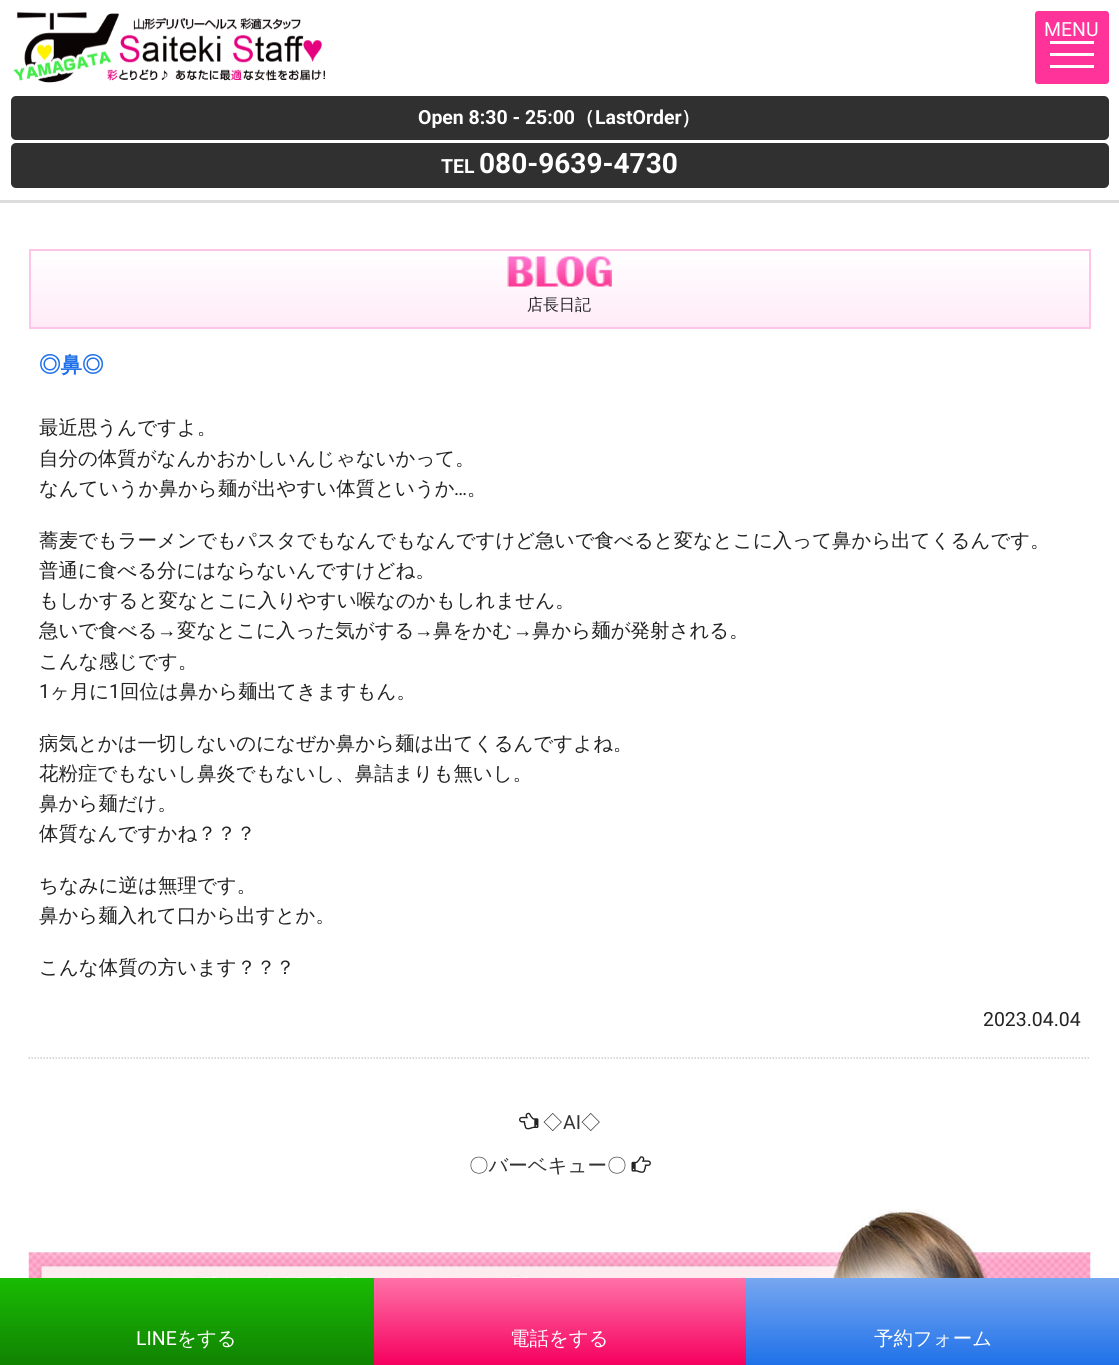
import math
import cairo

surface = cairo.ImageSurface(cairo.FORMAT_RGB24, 1119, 1365)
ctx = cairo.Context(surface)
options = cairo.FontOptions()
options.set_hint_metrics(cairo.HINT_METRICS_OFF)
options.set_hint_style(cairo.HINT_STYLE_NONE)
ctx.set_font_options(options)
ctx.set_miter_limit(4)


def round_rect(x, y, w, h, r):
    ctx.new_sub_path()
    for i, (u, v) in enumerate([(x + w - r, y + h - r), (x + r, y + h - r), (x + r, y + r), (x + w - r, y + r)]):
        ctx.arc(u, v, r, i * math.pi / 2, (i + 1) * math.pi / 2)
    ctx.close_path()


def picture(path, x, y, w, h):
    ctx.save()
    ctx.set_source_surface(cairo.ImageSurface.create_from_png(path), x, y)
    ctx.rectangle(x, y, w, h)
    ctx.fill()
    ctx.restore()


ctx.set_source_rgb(1, 1, 1)
ctx.paint()
ctx.set_source_rgb(0.867, 0.867, 0.867)
ctx.rectangle(0, 200, 1119, 3)
ctx.fill()
picture("img1.png", 13, 12, 312, 71)
ctx.set_source_rgb(1, 0.2, 0.6)
round_rect(1035, 11, 74, 73, 3)
ctx.fill()
ctx.select_font_face("Roboto")
ctx.set_font_size(19.45)
ctx.set_source_rgb(1, 1, 1)
ctx.move_to(1044, 36)
ctx.show_text("MENU")
ctx.rectangle(1050, 53, 44, 3)
ctx.fill()
ctx.rectangle(1050, 41, 44, 3)
ctx.fill()
ctx.rectangle(1050, 65, 44, 3)
ctx.fill()
ctx.set_source_rgb(0.188, 0.188, 0.188)
round_rect(11, 96, 1098, 44, 5)
ctx.fill()
ctx.select_font_face("Roboto", cairo.FONT_SLANT_NORMAL, cairo.FONT_WEIGHT_BOLD)
ctx.set_source_rgb(1, 1, 1)
ctx.move_to(418, 124)
ctx.show_text("Open 8:30 - 25:00")
ctx.select_font_face("WenQuanYi Zen Hei", cairo.FONT_SLANT_NORMAL, cairo.FONT_WEIGHT_BOLD)
ctx.move_to(575, 124)
ctx.show_text("（")
ctx.select_font_face("Roboto", cairo.FONT_SLANT_NORMAL, cairo.FONT_WEIGHT_BOLD)
ctx.move_to(595, 124)
ctx.show_text("LastOrder")
ctx.select_font_face("WenQuanYi Zen Hei", cairo.FONT_SLANT_NORMAL, cairo.FONT_WEIGHT_BOLD)
ctx.move_to(681, 124)
ctx.show_text("）")
ctx.set_source_rgb(0.188, 0.188, 0.188)
round_rect(11, 143, 1098, 45, 5)
ctx.fill()
ctx.select_font_face("Roboto", cairo.FONT_SLANT_NORMAL, cairo.FONT_WEIGHT_BOLD)
ctx.set_source_rgb(1, 1, 1)
ctx.move_to(441, 173)
ctx.show_text("TEL")
ctx.set_font_size(28)
ctx.move_to(479, 173)
ctx.show_text("080-9639-4730")
gradient = cairo.LinearGradient(560, 250, 560, 327)
gradient.add_color_stop_rgba(0, 1, 1, 1, 1)
gradient.add_color_stop_rgba(1, 1, 0.922, 0.969, 1)
ctx.set_source(gradient)
ctx.rectangle(31, 260, 1058, 67)
ctx.fill()
ctx.rectangle(30, 250, 1060, 78)
ctx.set_source_rgb(1, 0.773, 0.91)
ctx.stroke()
picture("img2.png", 507, 256, 105, 31)
ctx.select_font_face("WenQuanYi Zen Hei Medium")
ctx.set_font_size(16)
ctx.set_source_rgb(0.133, 0.133, 0.133)
ctx.move_to(527, 310)
ctx.show_text("店長日記")
ctx.new_path()
ctx.move_to(28.5, 1058)
ctx.line_to(1090.5, 1058)
ctx.set_source_rgb(0.8, 0.8, 0.8)
ctx.set_line_width(1.5)
ctx.set_dash([1.5, 1.5])
ctx.stroke()
ctx.select_font_face("WenQuanYi Zen Hei", cairo.FONT_SLANT_NORMAL, cairo.FONT_WEIGHT_BOLD)
ctx.set_font_size(21.5)
ctx.set_source_rgb(0.125, 0.443, 0.914)
ctx.move_to(39, 372)
ctx.show_text("◎鼻◎")
ctx.select_font_face("WenQuanYi Zen Hei Medium")
ctx.set_font_size(19.45)
ctx.set_source_rgb(0.133, 0.133, 0.133)
ctx.move_to(39, 434)
ctx.show_text("最近思うんですよ。")
ctx.move_to(39, 465)
ctx.show_text("自分の体質がなんかおかしいんじゃないかって。")
ctx.move_to(39, 495)
ctx.show_text("なんていうか鼻から麺が出やすい体質というか")
ctx.select_font_face("Roboto")
ctx.move_to(454, 495)
ctx.show_text("…")
ctx.select_font_face("WenQuanYi Zen Hei Medium")
ctx.move_to(467, 495)
ctx.show_text("。")
ctx.move_to(39, 547)
ctx.show_text("蕎麦でもラーメンでもパスタでもなんでもなんですけど急いで食べると変なとこに入って鼻から出てくるんです。")
ctx.move_to(39, 577)
ctx.show_text("普通に食べる分にはならないんですけどね。")
ctx.move_to(39, 607)
ctx.show_text("もしかすると変なとこに入りやすい喉なのかもしれません。")
ctx.move_to(39, 637)
ctx.show_text("急いで食べる")
ctx.select_font_face("Liberation Sans")
ctx.move_to(157, 637)
ctx.show_text("→")
ctx.select_font_face("WenQuanYi Zen Hei Medium")
ctx.move_to(177, 637)
ctx.show_text("変なとこに入った気がする")
ctx.select_font_face("Liberation Sans")
ctx.move_to(414, 637)
ctx.show_text("→")
ctx.select_font_face("WenQuanYi Zen Hei Medium")
ctx.move_to(433, 637)
ctx.show_text("鼻をかむ")
ctx.select_font_face("Liberation Sans")
ctx.move_to(513, 637)
ctx.show_text("→")
ctx.select_font_face("WenQuanYi Zen Hei Medium")
ctx.move_to(532, 637)
ctx.show_text("鼻から麺が発射される。")
ctx.move_to(39, 668)
ctx.show_text("こんな感じです。")
ctx.select_font_face("Roboto")
ctx.move_to(39, 698)
ctx.show_text("1")
ctx.select_font_face("WenQuanYi Zen Hei Medium")
ctx.move_to(50, 698)
ctx.show_text("ヶ月に")
ctx.select_font_face("Roboto")
ctx.move_to(109, 698)
ctx.show_text("1")
ctx.select_font_face("WenQuanYi Zen Hei Medium")
ctx.move_to(120, 698)
ctx.show_text("回位は鼻から麺出てきますもん。")
ctx.move_to(39, 750)
ctx.show_text("病気とかは一切しないのになぜか鼻から麺は出てくるんですよね。")
ctx.move_to(39, 780)
ctx.show_text("花粉症でもないし鼻炎でもないし、鼻詰まりも無いし。")
ctx.move_to(39, 810)
ctx.show_text("鼻から麺だけ。")
ctx.move_to(39, 840)
ctx.show_text("体質なんですかね？？？")
ctx.move_to(39, 892)
ctx.show_text("ちなみに逆は無理です。")
ctx.move_to(39, 922)
ctx.show_text("鼻から麺入れて口から出すとか。")
ctx.move_to(39, 974)
ctx.show_text("こんな体質の方います？？？")
ctx.select_font_face("Roboto")
ctx.move_to(983, 1026)
ctx.show_text("2023.04.04")
picture("img3.png", 519, 1112, 20, 18)
ctx.select_font_face("WenQuanYi Zen Hei Medium")
ctx.set_source_rgb(0.2, 0.2, 0.2)
ctx.move_to(543, 1129)
ctx.show_text("◇")
ctx.select_font_face("Roboto")
ctx.move_to(563, 1129)
ctx.show_text("AI")
ctx.select_font_face("WenQuanYi Zen Hei Medium")
ctx.move_to(581, 1129)
ctx.show_text("◇")
ctx.move_to(469, 1172)
ctx.show_text("〇バーベキュー〇")
picture("img4.png", 631, 1156, 20, 17)
picture("img5.png", 28, 1209, 1063, 69)
gradient = cairo.LinearGradient(187, 1278, 187, 1365)
gradient.add_color_stop_rgba(0, 0.098, 0.737, 0.012, 1)
gradient.add_color_stop_rgba(1, 0.067, 0.51, 0.008, 1)
ctx.set_source(gradient)
ctx.rectangle(0, 1278, 374, 87)
ctx.fill()
ctx.select_font_face("Roboto")
ctx.set_source_rgb(1, 1, 1)
ctx.move_to(136, 1345)
ctx.show_text("LINE")
ctx.select_font_face("WenQuanYi Zen Hei Medium")
ctx.move_to(177, 1345)
ctx.show_text("をする")
gradient = cairo.LinearGradient(560, 1278, 560, 1365)
gradient.add_color_stop_rgba(0, 1, 0.447, 0.659, 1)
gradient.add_color_stop_rgba(1, 0.961, 0, 0.369, 1)
ctx.set_source(gradient)
ctx.rectangle(374, 1278, 372, 87)
ctx.fill()
ctx.set_source_rgb(1, 1, 1)
ctx.move_to(510, 1345)
ctx.show_text("電話をする")
gradient = cairo.LinearGradient(932, 1278, 932, 1365)
gradient.add_color_stop_rgba(0, 0.463, 0.655, 0.941, 1)
gradient.add_color_stop_rgba(1, 0.125, 0.443, 0.914, 1)
ctx.set_source(gradient)
ctx.rectangle(746, 1278, 373, 87)
ctx.fill()
ctx.set_source_rgb(1, 1, 1)
ctx.move_to(874, 1345)
ctx.show_text("予約フォーム")
surface.write_to_png("page.png")
